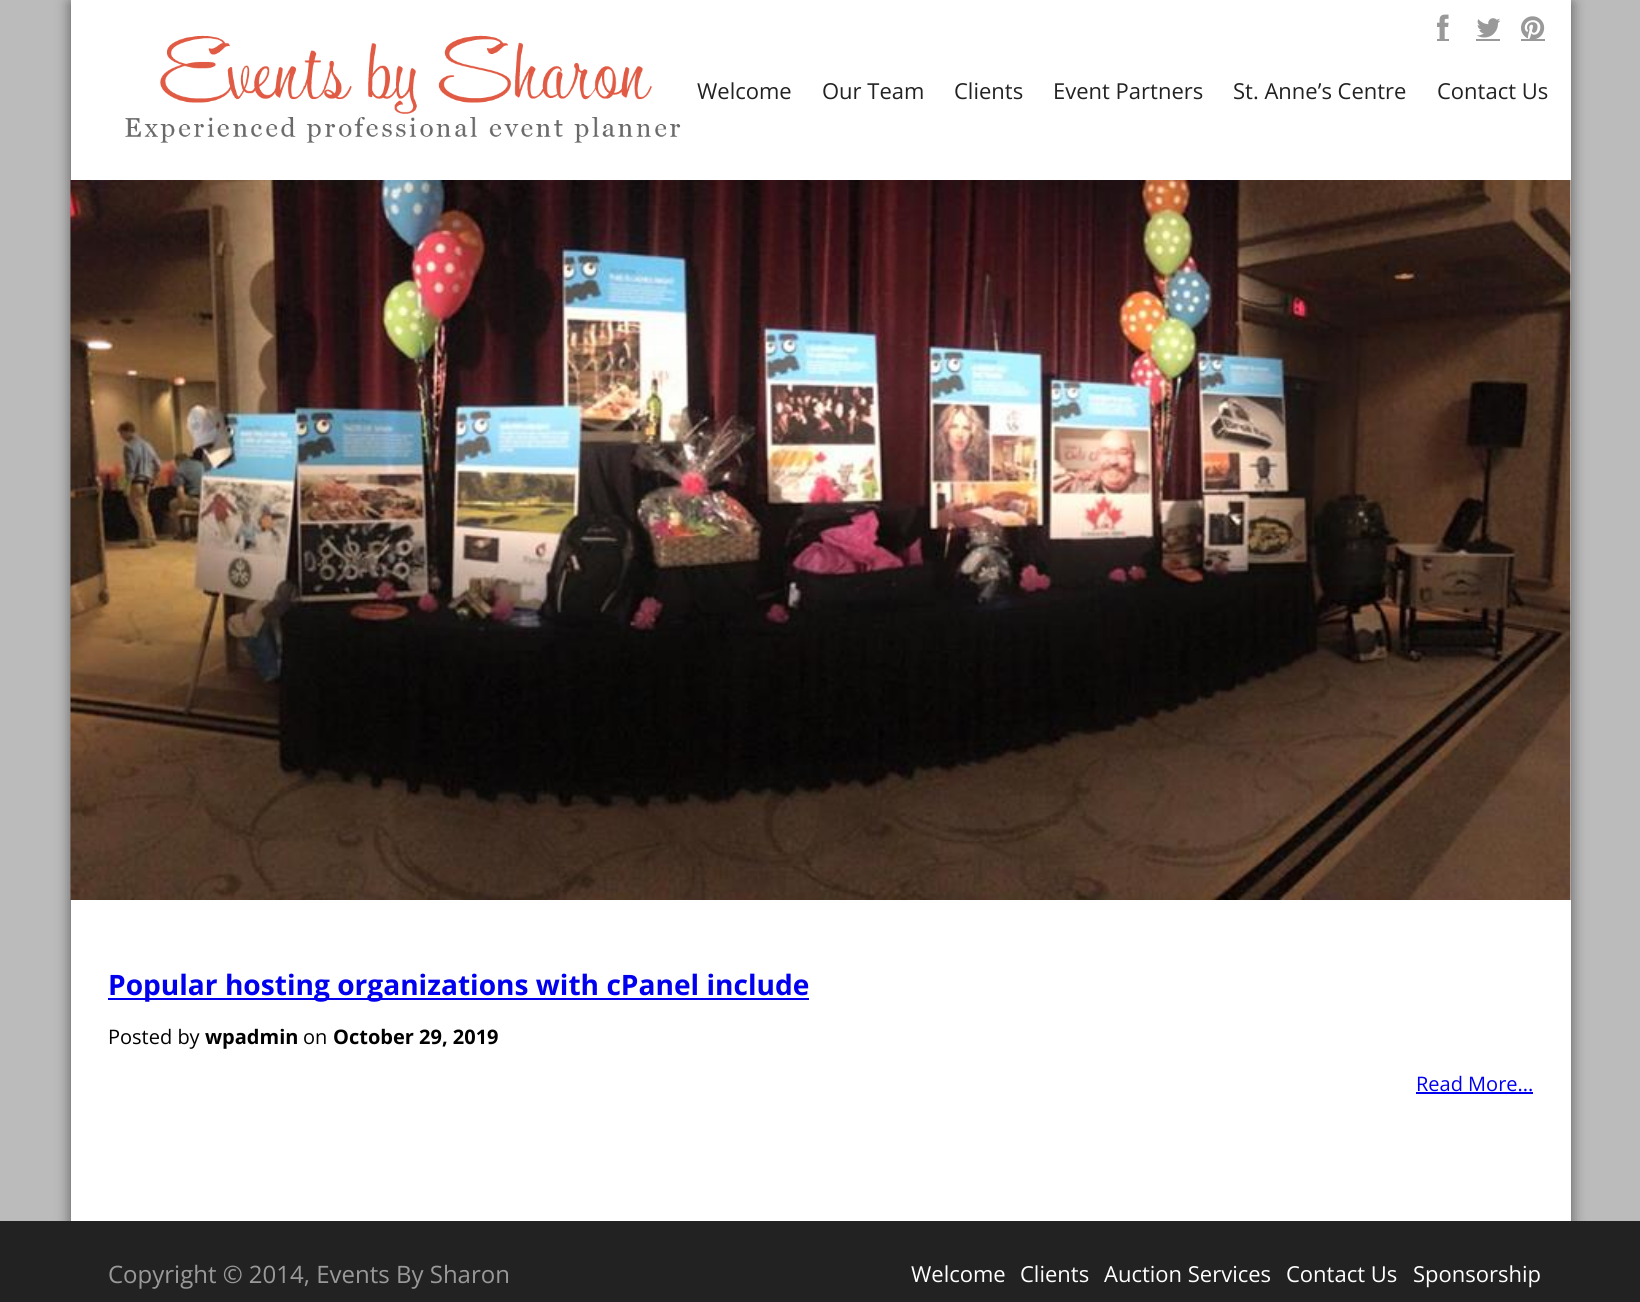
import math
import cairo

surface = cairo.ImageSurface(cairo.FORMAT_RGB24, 1640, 1302)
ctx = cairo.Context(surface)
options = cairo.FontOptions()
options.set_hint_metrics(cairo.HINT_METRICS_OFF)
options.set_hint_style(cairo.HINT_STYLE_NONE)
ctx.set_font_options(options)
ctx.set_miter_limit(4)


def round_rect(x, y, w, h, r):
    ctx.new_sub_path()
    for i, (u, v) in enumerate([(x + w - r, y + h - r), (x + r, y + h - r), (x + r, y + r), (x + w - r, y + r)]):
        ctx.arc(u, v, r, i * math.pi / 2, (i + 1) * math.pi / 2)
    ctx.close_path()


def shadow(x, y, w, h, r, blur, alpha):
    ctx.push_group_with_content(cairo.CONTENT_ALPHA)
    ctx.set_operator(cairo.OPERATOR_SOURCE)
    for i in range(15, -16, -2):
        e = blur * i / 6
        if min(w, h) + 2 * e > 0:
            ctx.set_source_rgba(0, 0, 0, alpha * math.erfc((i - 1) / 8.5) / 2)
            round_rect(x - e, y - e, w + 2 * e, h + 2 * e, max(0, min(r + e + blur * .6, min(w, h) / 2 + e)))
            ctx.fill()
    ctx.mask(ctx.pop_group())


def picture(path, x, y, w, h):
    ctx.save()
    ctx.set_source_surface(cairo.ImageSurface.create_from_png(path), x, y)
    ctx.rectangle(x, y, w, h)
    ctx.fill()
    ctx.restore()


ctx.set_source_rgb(0.733, 0.733, 0.733)
ctx.paint()
ctx.set_source_rgb(0.196, 0.196, 0.196)
shadow(71, 3, 1500, 1221, 0, 7.5, 0.75)
ctx.set_source_rgb(1, 1, 1)
ctx.rectangle(71, 0, 1500, 1221)
ctx.fill()
ctx.set_source_rgb(0.6, 0.6, 0.6)
ctx.rectangle(1437, 39, 12, 2)
ctx.fill()
picture("img1.png", 1437, 14, 12, 25)
ctx.rectangle(1476, 39, 24, 2)
ctx.fill()
picture("img2.png", 1477, 18, 24, 20)
ctx.rectangle(1521, 39, 24, 2)
ctx.fill()
picture("img3.png", 1521, 16, 24, 23)
picture("img4.png", 125, 35, 556, 108)
ctx.select_font_face("Open Sans")
ctx.set_font_size(22)
ctx.set_source_rgb(0.133, 0.133, 0.133)
ctx.move_to(697, 99)
ctx.show_text("Welcome")
ctx.move_to(822, 99)
ctx.show_text("Our Team")
ctx.move_to(954, 99)
ctx.show_text("Clients")
ctx.move_to(1053, 99)
ctx.show_text("Event Partners")
ctx.move_to(1233, 99)
ctx.show_text("St. Anne’s Centre")
ctx.move_to(1437, 99)
ctx.show_text("Contact Us")
picture("img5.png", 70, 180, 1501, 720)
ctx.set_source_rgb(0, 0, 0.933)
ctx.rectangle(108, 998, 701, 2)
ctx.fill()
ctx.select_font_face("Open Sans", cairo.FONT_SLANT_NORMAL, cairo.FONT_WEIGHT_BOLD)
ctx.set_font_size(28.1)
ctx.move_to(108, 995)
ctx.show_text("Popular hosting organizations with cPanel include")
ctx.select_font_face("Open Sans")
ctx.set_font_size(20)
ctx.set_source_rgb(0, 0, 0)
ctx.move_to(108, 1044)
ctx.show_text("Posted by")
ctx.select_font_face("Open Sans", cairo.FONT_SLANT_NORMAL, cairo.FONT_WEIGHT_BOLD)
ctx.move_to(205, 1044)
ctx.show_text("wpadmin")
ctx.select_font_face("Open Sans")
ctx.move_to(303, 1044)
ctx.show_text("on")
ctx.select_font_face("Open Sans", cairo.FONT_SLANT_NORMAL, cairo.FONT_WEIGHT_BOLD)
ctx.move_to(333, 1044)
ctx.show_text("October 29, 2019")
ctx.select_font_face("Open Sans")
ctx.set_source_rgb(0, 0, 0.933)
ctx.move_to(1416, 1091)
ctx.show_text("Read More...")
ctx.rectangle(1416, 1092, 117, 2)
ctx.fill()
ctx.set_source_rgb(0.133, 0.133, 0.133)
ctx.rectangle(0, 1221, 1640, 81)
ctx.fill()
ctx.set_font_size(24)
ctx.set_source_rgb(0.6, 0.6, 0.6)
ctx.move_to(108, 1283)
ctx.show_text("Copyright © 2014, Events By Sharon")
ctx.set_font_size(22)
ctx.set_source_rgb(1, 1, 1)
ctx.move_to(911, 1282)
ctx.show_text("Welcome")
ctx.move_to(1020, 1282)
ctx.show_text("Clients")
ctx.move_to(1104, 1282)
ctx.show_text("Auction Services")
ctx.move_to(1286, 1282)
ctx.show_text("Contact Us")
ctx.move_to(1413, 1282)
ctx.show_text("Sponsorship")
surface.write_to_png("page.png")
